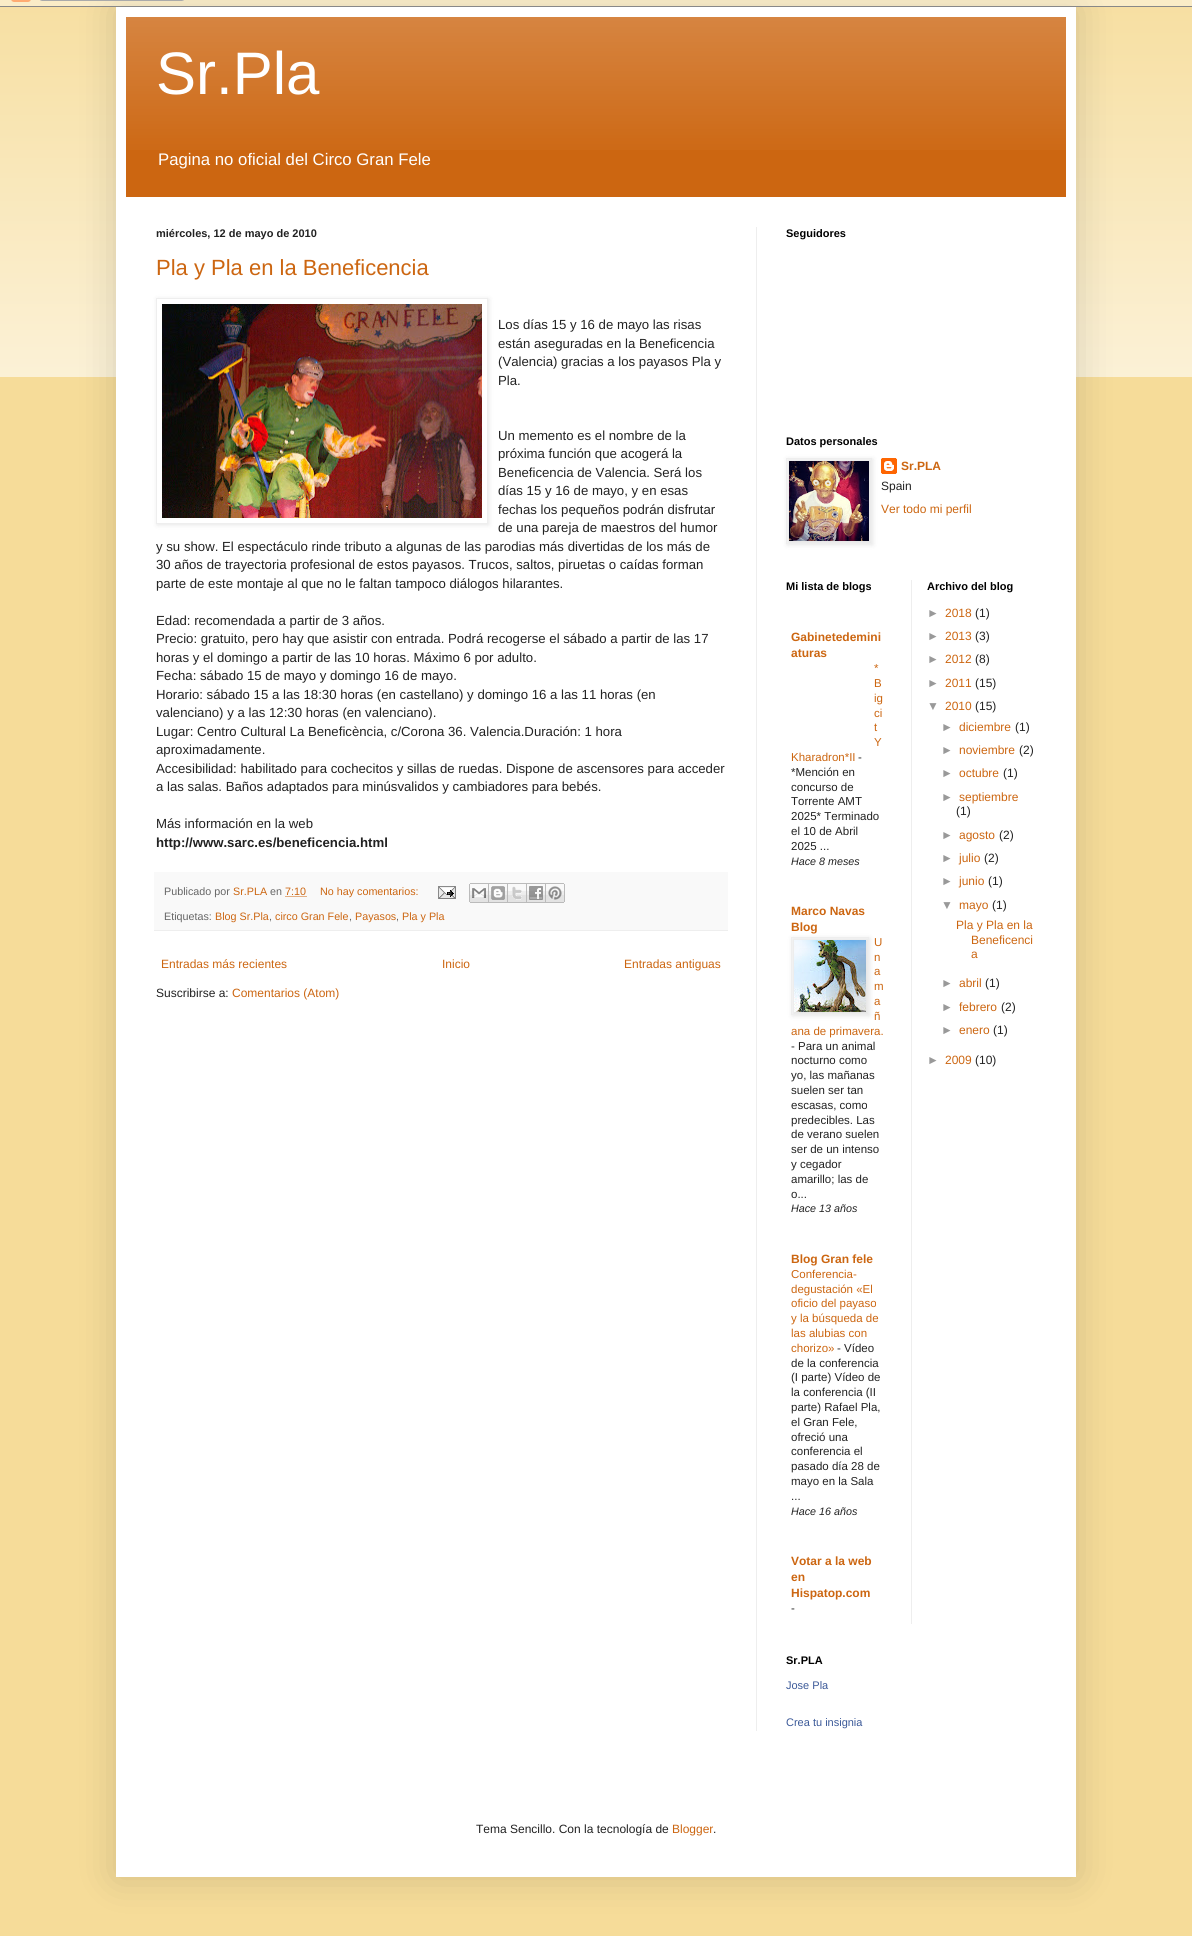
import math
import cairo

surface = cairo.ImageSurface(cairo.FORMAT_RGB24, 1192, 1936)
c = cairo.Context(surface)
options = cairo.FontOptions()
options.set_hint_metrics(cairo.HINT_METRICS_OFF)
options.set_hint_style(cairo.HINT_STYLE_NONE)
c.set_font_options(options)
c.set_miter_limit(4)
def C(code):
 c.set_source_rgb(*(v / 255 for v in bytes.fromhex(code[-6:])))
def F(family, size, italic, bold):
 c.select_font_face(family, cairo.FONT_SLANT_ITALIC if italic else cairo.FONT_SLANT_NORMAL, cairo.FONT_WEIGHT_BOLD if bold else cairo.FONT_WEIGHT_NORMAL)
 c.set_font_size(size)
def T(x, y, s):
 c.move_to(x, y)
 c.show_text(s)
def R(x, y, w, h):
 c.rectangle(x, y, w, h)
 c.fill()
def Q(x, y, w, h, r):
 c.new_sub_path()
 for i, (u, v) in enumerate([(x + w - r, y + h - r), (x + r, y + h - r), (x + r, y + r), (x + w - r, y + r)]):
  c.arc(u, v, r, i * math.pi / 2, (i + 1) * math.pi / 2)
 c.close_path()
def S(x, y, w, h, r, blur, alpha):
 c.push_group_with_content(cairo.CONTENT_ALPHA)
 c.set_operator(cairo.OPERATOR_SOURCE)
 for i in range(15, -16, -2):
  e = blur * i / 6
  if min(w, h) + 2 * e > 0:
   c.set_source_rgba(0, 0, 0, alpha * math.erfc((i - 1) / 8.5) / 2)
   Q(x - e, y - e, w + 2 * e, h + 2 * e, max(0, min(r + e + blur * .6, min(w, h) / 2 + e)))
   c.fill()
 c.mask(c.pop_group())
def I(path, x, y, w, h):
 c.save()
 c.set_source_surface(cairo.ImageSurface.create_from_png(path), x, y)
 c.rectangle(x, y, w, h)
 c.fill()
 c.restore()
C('f6dc99')
c.paint()
I('1.png',0,0,1192,377)
C('000000')
S(116,7,960,1870,0,20,.15)
I('2.png',0,0,1192,7)
C('ffffff')
R(116,7,960,1870)
C('cc6611')
R(126,17,940,180)
I('3.png',126,17,940,133)
F('Liberation Sans',60,0,0)
C('ffffff')
T(156,94,'Sr.Pla')
F('Liberation Sans',16.75,0,0)
T(158,165,'Pagina no oficial del Circo Gran Fele')
C('eeeeee')
R(756,227,1,1504)
F('Liberation Sans',11,0,1)
C('222222')
T(156,237,'miércoles, 12 de mayo de 2010')
F('Liberation Sans',22,0,0)
C('cc6611')
T(156,275,'Pla y Pla en la Beneficencia')
c.save()
c.set_fill_rule(cairo.FILL_RULE_EVEN_ODD)
c.new_path()
c.move_to(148,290)
c.line_to(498,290)
c.line_to(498,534)
c.line_to(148,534)
c.close_path()
c.move_to(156,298)
c.line_to(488,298)
c.line_to(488,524)
c.line_to(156,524)
c.close_path()
c.clip()
C('000000')
S(157,299,332,226,0,2.5,.1)
c.restore()
c.rectangle(156.5,298.5,331,225)
C('eeeeee')
c.set_line_width(1)
c.stroke()
I('4.png',162,304,320,214)
F('Liberation Sans',13.2,0,0)
C('222222')
T(498,329,'Los días 15 y 16 de mayo las risas')
T(498,348,'están aseguradas en la Beneficencia')
T(498,366,'(Valencia) gracias a los payasos Pla y')
T(498,385,'Pla.')
T(498,440,'Un memento es el nombre de la')
T(498,458,'próxima función que acogerá la')
T(498,477,'Beneficencia de Valencia. Será los')
T(498,495,'días 15 y 16 de mayo, y en esas')
T(498,514,'fechas los pequeños podrán disfrutar')
T(498,532,'de una pareja de maestros del humor')
T(156,551,'y su show. El espectáculo rinde tributo a algunas de las parodias más divertidas de los más de')
T(156,569,'30 años de trayectoria profesional de estos payasos. Trucos, saltos, piruetas o caídas forman')
T(156,588,'parte de este montaje al que no le faltan tampoco diálogos hilarantes.')
T(156,625,'Edad: recomendada a partir de 3 años.')
T(156,643,'Precio: gratuito, pero hay que asistir con entrada. Podrá recogerse el sábado a partir de las 17')
T(156,662,'horas y el domingo a partir de las 10 horas. Máximo 6 por adulto.')
T(156,680,'Fecha: sábado 15 de mayo y domingo 16 de mayo.')
T(156,699,'Horario: sábado 15 a las 18:30 horas (en castellano) y domingo 16 a las 11 horas (en')
T(156,717,'valenciano) y a las 12:30 horas (en valenciano).')
T(156,736,'Lugar: Centro Cultural La Beneficència, c/Corona 36. Valencia.Duración: 1 hora')
T(156,754,'aproximadamente.')
T(156,773,'Accesibilidad: habilitado para cochecitos y sillas de ruedas. Dispone de ascensores para acceder')
T(156,791,'a las salas. Baños adaptados para minúsvalidos y cambiadores para bebés.')
T(156,828,'Más información en la web')
F('Liberation Sans',13.2,0,1)
T(156,847,'http://www.sarc.es/beneficencia.html')
C('f9f9f9')
R(154,872,574,58)
C('eeeeee')
R(154,930,574,1)
F('Liberation Sans',10.75,0,0)
C('666666')
T(164,895,'Publicado por')
C('cc6611')
T(233,895,'Sr.PLA')
C('666666')
T(270,895,'en')
C('cc6611')
T(285,895,'7:10')
c.new_path()
c.move_to(285.5,896.5)
c.line_to(306.5,896.5)
c.set_dash([1,1])
c.stroke()
T(320,895,'No hay comentarios:')
I('5.png',438,886,18,13)
I('6.png',469,883,20,20)
I('7.png',489,883,19,20)
I('8.png',508,883,19,20)
I('9.png',527,883,19,20)
I('10.png',546,883,19,20)
C('666666')
T(164,920,'Etiquetas:')
C('cc6611')
T(215,920,'Blog Sr.Pla')
C('666666')
T(269,920,',')
C('cc6611')
T(275,920,'circo Gran Fele')
C('666666')
T(349,920,',')
C('cc6611')
T(355,920,'Payasos')
C('666666')
T(396,920,',')
C('cc6611')
T(402,920,'Pla y Pla')
F('Liberation Sans',12,0,0)
T(161,968,'Entradas más recientes')
T(442,968,'Inicio')
T(624,968,'Entradas antiguas')
C('222222')
T(156,997,'Suscribirse a:')
C('cc6611')
T(232,997,'Comentarios (Atom)')
F('Liberation Sans',11,0,1)
C('000000')
T(786,237,'Seguidores')
T(786,445,'Datos personales')
I('12.png',881,458,16,16)
C('000000')
S(787,459,86,86,0,2.5,.1)
c.rectangle(786.5,458.5,85,85)
C('eeeeee')
c.set_dash([])
c.stroke()
I('11.png',789,461,80,80)
F('Liberation Sans',12,0,1)
C('cc6611')
T(901,470,'Sr.PLA')
F('Liberation Sans',12,0,0)
C('222222')
T(881,490,'Spain')
C('cc6611')
T(881,513,'Ver todo mi perfil')
F('Liberation Sans',11,0,1)
C('000000')
T(786,590,'Mi lista de blogs')
F('Liberation Sans',12,0,1)
C('cc6611')
T(791,641,'Gabinetedemini')
T(791,657,'aturas')
F('Liberation Sans',11.5,0,0)
T(874,672,'*')
T(874,687,'B')
T(874,702,'ig')
T(874,717,'ci')
T(874,731,'t')
T(874,746,'Y')
T(791,761,'Kharadron*II')
C('222222')
T(858,761,'-')
T(791,776,'*Mención en')
T(791,791,'concurso de')
T(791,805,'Torrente AMT')
T(791,820,'2025* Terminado')
T(791,835,'el 10 de Abril')
T(791,850,'2025 ...')
F('Liberation Sans',10.75,1,0)
T(791,865,'Hace 8 meses')
F('Liberation Sans',12,0,1)
C('cc6611')
T(791,915,'Marco Navas')
T(791,931,'Blog')
C('000000')
S(792,938,78,78,0,2.5,.1)
c.rectangle(791.5,937.5,77,77)
C('eeeeee')
c.stroke()
I('13.png',794,940,72,72)
F('Liberation Sans',11.5,0,0)
C('cc6611')
T(874,946,'U')
T(874,961,'n')
T(874,975,'a')
T(874,990,'m')
T(874,1005,'a')
T(874,1020,'ñ')
T(791,1035,'ana de primavera.')
C('222222')
T(791,1050,'- Para un animal')
T(791,1064,'nocturno como')
T(791,1079,'yo, las mañanas')
T(791,1094,'suelen ser tan')
T(791,1109,'escasas, como')
T(791,1124,'predecibles. Las')
T(791,1138,'de verano suelen')
T(791,1153,'ser de un intenso')
T(791,1168,'y cegador')
T(791,1183,'amarillo; las de')
T(791,1198,'o...')
F('Liberation Sans',10.75,1,0)
T(791,1212,'Hace 13 años')
F('Liberation Sans',12,0,1)
C('cc6611')
T(791,1263,'Blog Gran fele')
F('Liberation Sans',11.5,0,0)
T(791,1278,'Conferencia-')
T(791,1293,'degustación «El')
T(791,1307,'oficio del payaso')
T(791,1322,'y la búsqueda de')
T(791,1337,'las alubias con')
T(791,1352,'chorizo»')
C('222222')
T(837,1352,'- Vídeo')
T(791,1367,'de la conferencia')
T(791,1381,'(I parte) Vídeo de')
T(791,1396,'la conferencia (II')
T(791,1411,'parte) Rafael Pla,')
T(791,1426,'el Gran Fele,')
T(791,1441,'ofreció una')
T(791,1455,'conferencia el')
T(791,1470,'pasado día 28 de')
T(791,1485,'mayo en la Sala')
T(791,1500,'...')
F('Liberation Sans',10.75,1,0)
T(791,1515,'Hace 16 años')
F('Liberation Sans',12,0,1)
C('cc6611')
T(791,1565,'Votar a la web')
T(791,1581,'en')
T(791,1597,'Hispatop.com')
F('Liberation Sans',11.5,0,0)
C('222222')
T(791,1612,'-')
C('eeeeee')
R(911,580,1,1044)
F('Liberation Sans',11,0,1)
C('000000')
T(927,590,'Archivo del blog')
F('Liberation Sans',12,0,0)
C('999999')
T(927,617,'►')
C('cc6611')
T(945,617,'2018')
C('222222')
T(975,617,'(1)')
C('999999')
T(927,640,'►')
C('cc6611')
T(945,640,'2013')
C('222222')
T(975,640,'(3)')
C('999999')
T(927,663,'►')
C('cc6611')
T(945,663,'2012')
C('222222')
T(975,663,'(8)')
C('999999')
T(927,687,'►')
C('cc6611')
T(945,687,'2011')
C('222222')
T(975,687,'(15)')
C('999999')
T(927,710,'▼')
C('cc6611')
T(945,710,'2010')
C('222222')
T(975,710,'(15)')
C('999999')
T(941,731,'►')
C('cc6611')
T(959,731,'diciembre')
C('222222')
T(1015,731,'(1)')
C('999999')
T(941,754,'►')
C('cc6611')
T(959,754,'noviembre')
C('222222')
T(1019,754,'(2)')
C('999999')
T(941,777,'►')
C('cc6611')
T(959,777,'octubre')
C('222222')
T(1003,777,'(1)')
C('999999')
T(941,801,'►')
C('cc6611')
T(959,801,'septiembre')
C('222222')
T(956,815,'(1)')
C('999999')
T(941,839,'►')
C('cc6611')
T(959,839,'agosto')
C('222222')
T(999,839,'(2)')
C('999999')
T(941,862,'►')
C('cc6611')
T(959,862,'julio')
C('222222')
T(984,862,'(2)')
C('999999')
T(941,885,'►')
C('cc6611')
T(959,885,'junio')
C('222222')
T(988,885,'(1)')
C('999999')
T(941,909,'▼')
C('cc6611')
T(959,909,'mayo')
C('222222')
T(992,909,'(1)')
C('cc6611')
T(956,929,'Pla y Pla en la')
T(971,944,'Beneficenci')
T(971,958,'a')
C('999999')
T(941,987,'►')
C('cc6611')
T(959,987,'abril')
C('222222')
T(985,987,'(1)')
C('999999')
T(941,1011,'►')
C('cc6611')
T(959,1011,'febrero')
C('222222')
T(1001,1011,'(2)')
C('999999')
T(941,1034,'►')
C('cc6611')
T(959,1034,'enero')
C('222222')
T(993,1034,'(1)')
C('999999')
T(927,1064,'►')
C('cc6611')
T(945,1064,'2009')
C('222222')
T(975,1064,'(10)')
F('Liberation Sans',11,0,1)
C('000000')
T(786,1664,'Sr.PLA')
F('Liberation Sans',11,0,0)
C('3b5998')
T(786,1689,'Jose Pla')
T(786,1726,'Crea tu insignia')
F('Liberation Sans',12,0,0)
C('222222')
T(476,1833,'Tema Sencillo. Con la tecnología de')
C('cc6611')
T(672,1833,'Blogger')
C('222222')
T(713,1833,'.')
surface.write_to_png('o.png')
